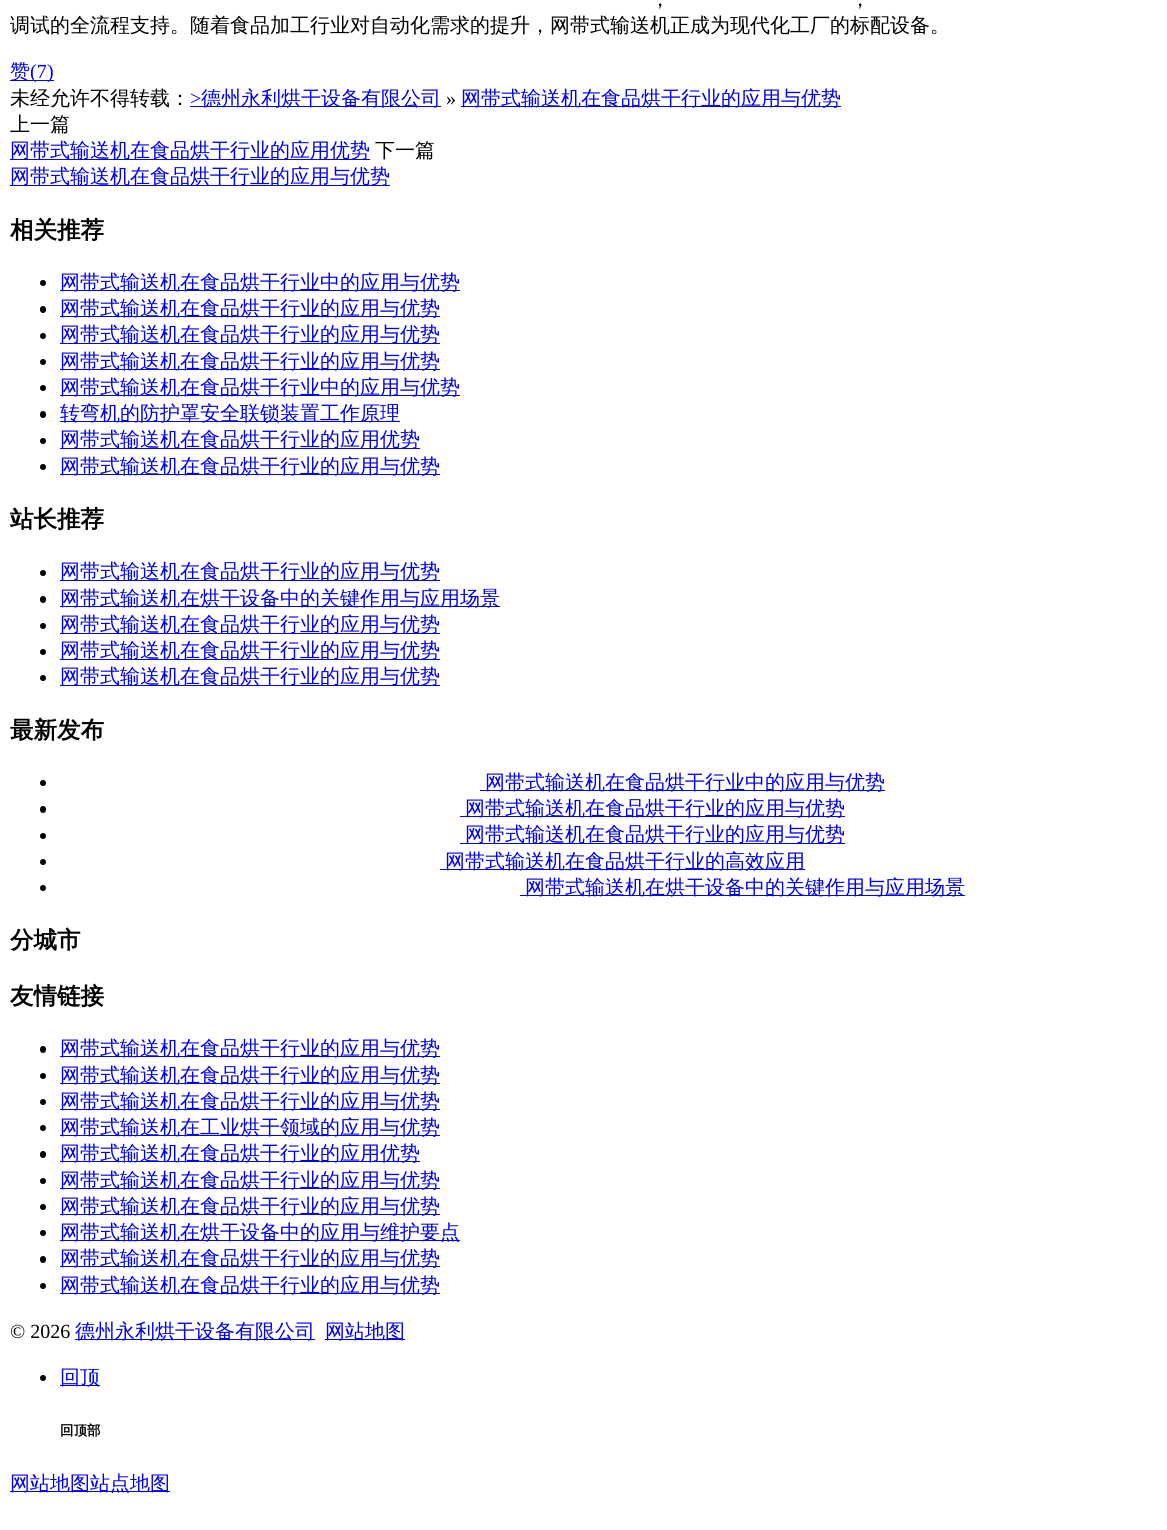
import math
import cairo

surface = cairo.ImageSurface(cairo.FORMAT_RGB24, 1167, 1530)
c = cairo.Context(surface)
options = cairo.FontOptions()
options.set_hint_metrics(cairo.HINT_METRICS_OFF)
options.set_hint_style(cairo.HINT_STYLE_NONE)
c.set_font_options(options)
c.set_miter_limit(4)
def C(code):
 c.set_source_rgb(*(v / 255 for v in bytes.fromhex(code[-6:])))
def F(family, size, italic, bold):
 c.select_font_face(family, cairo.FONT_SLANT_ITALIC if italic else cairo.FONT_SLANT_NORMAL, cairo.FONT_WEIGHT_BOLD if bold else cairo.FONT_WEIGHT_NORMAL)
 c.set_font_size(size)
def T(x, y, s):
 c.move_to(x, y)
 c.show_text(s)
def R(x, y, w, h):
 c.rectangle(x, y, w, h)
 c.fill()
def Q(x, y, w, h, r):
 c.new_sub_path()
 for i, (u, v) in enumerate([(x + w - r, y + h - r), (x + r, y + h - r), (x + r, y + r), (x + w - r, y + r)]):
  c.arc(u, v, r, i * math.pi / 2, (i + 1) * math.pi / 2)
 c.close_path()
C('ffffff')
c.paint()
F('WenQuanYi Zen Hei Medium',20,0,0)
C('000000')
T(650,6,'，')
T(850,6,'，')
T(10,32,'调试的全流程支持。随着食品加工行业对自动化需求的提升，网带式输送机正成为现代化工厂的标配设备。')
C('0000ee')
R(10,80,26,1)
T(10,78,'赞')
F('Liberation Serif',20,0,0)
T(30,78,'(7')
R(36,80,18,1)
T(47,78,')')
F('WenQuanYi Zen Hei Medium',20,0,0)
C('000000')
T(10,105,'未经允许不得转载：')
F('Liberation Serif',20,0,0)
C('0000ee')
T(190,105,'>')
R(190,106,251,1)
F('WenQuanYi Zen Hei Medium',20,0,0)
T(201,105,'德州永利烘干设备有限公司')
F('Liberation Serif',20,0,0)
C('000000')
T(446,105,'»')
C('0000ee')
R(461,106,380,1)
F('WenQuanYi Zen Hei Medium',20,0,0)
T(461,105,'网带式输送机在食品烘干行业的应用与优势')
C('000000')
T(10,131,'上一篇')
C('0000ee')
R(10,159,360,1)
T(10,157,'网带式输送机在食品烘干行业的应用优势')
C('000000')
T(375,157,'下一篇')
C('0000ee')
R(10,185,380,1)
T(10,183,'网带式输送机在食品烘干行业的应用与优势')
F('WenQuanYi Zen Hei',23.5,0,1)
C('000000')
T(10,238,'相关推荐')
c.new_path()
c.arc(43,283,3,0,2 * math.pi)
c.fill()
C('0000ee')
R(60,290,400,1)
F('WenQuanYi Zen Hei Medium',20,0,0)
T(60,289,'网带式输送机在食品烘干行业中的应用与优势')
C('000000')
Q(40,306,6,7,3)
c.fill()
C('0000ee')
R(60,316,380,1)
T(60,315,'网带式输送机在食品烘干行业的应用与优势')
C('000000')
c.new_path()
c.arc(43,336,3,0,2 * math.pi)
c.fill()
C('0000ee')
R(60,343,380,1)
T(60,341,'网带式输送机在食品烘干行业的应用与优势')
C('000000')
c.new_path()
c.arc(43,362,3,0,2 * math.pi)
c.fill()
C('0000ee')
R(60,369,380,1)
T(60,368,'网带式输送机在食品烘干行业的应用与优势')
C('000000')
c.new_path()
c.arc(43,388,3,0,2 * math.pi)
c.fill()
C('0000ee')
R(60,395,400,1)
T(60,394,'网带式输送机在食品烘干行业中的应用与优势')
C('000000')
Q(40,411,6,7,3)
c.fill()
C('0000ee')
R(60,421,340,1)
T(60,420,'转弯机的防护罩安全联锁装置工作原理')
C('000000')
c.new_path()
c.arc(43,441,3,0,2 * math.pi)
c.fill()
C('0000ee')
R(60,448,360,1)
T(60,446,'网带式输送机在食品烘干行业的应用优势')
C('000000')
c.new_path()
c.arc(43,467,3,0,2 * math.pi)
c.fill()
C('0000ee')
R(60,474,380,1)
T(60,473,'网带式输送机在食品烘干行业的应用与优势')
F('WenQuanYi Zen Hei',23.5,0,1)
C('000000')
T(10,527,'站长推荐')
c.new_path()
c.arc(43,573,3,0,2 * math.pi)
c.fill()
C('0000ee')
R(60,580,380,1)
F('WenQuanYi Zen Hei Medium',20,0,0)
T(60,578,'网带式输送机在食品烘干行业的应用与优势')
C('000000')
Q(40,596,6,7,3)
c.fill()
C('0000ee')
R(60,606,440,1)
T(60,605,'网带式输送机在烘干设备中的关键作用与应用场景')
C('000000')
c.new_path()
c.arc(43,626,3,0,2 * math.pi)
c.fill()
C('0000ee')
R(60,633,380,1)
T(60,631,'网带式输送机在食品烘干行业的应用与优势')
C('000000')
c.new_path()
c.arc(43,652,3,0,2 * math.pi)
c.fill()
C('0000ee')
R(60,659,380,1)
T(60,657,'网带式输送机在食品烘干行业的应用与优势')
C('000000')
c.new_path()
c.arc(43,678,3,0,2 * math.pi)
c.fill()
C('0000ee')
R(60,685,380,1)
T(60,683,'网带式输送机在食品烘干行业的应用与优势')
F('WenQuanYi Zen Hei',23.5,0,1)
C('000000')
T(10,738,'最新发布')
c.new_path()
c.arc(43,783,3,0,2 * math.pi)
c.fill()
C('0000ee')
R(480,790,405,1)
F('WenQuanYi Zen Hei Medium',20,0,0)
T(485,789,'网带式输送机在食品烘干行业中的应用与优势')
C('000000')
Q(40,806,6,7,3)
c.fill()
C('0000ee')
R(460,816,385,1)
T(465,815,'网带式输送机在食品烘干行业的应用与优势')
C('000000')
c.new_path()
c.arc(43,836,3,0,2 * math.pi)
c.fill()
C('0000ee')
R(460,843,385,1)
T(465,841,'网带式输送机在食品烘干行业的应用与优势')
C('000000')
c.new_path()
c.arc(43,862,3,0,2 * math.pi)
c.fill()
C('0000ee')
R(440,869,365,1)
T(445,868,'网带式输送机在食品烘干行业的高效应用')
C('000000')
c.new_path()
c.arc(43,888,3,0,2 * math.pi)
c.fill()
C('0000ee')
R(520,895,445,1)
T(525,894,'网带式输送机在烘干设备中的关键作用与应用场景')
F('WenQuanYi Zen Hei',23.5,0,1)
C('000000')
T(10,948,'分城市')
T(10,1004,'友情链接')
Q(40,1046,6,7,3)
c.fill()
C('0000ee')
R(60,1056,380,1)
F('WenQuanYi Zen Hei Medium',20,0,0)
T(60,1055,'网带式输送机在食品烘干行业的应用与优势')
C('000000')
c.new_path()
c.arc(43,1076,3,0,2 * math.pi)
c.fill()
C('0000ee')
R(60,1083,380,1)
T(60,1082,'网带式输送机在食品烘干行业的应用与优势')
C('000000')
c.new_path()
c.arc(43,1102,3,0,2 * math.pi)
c.fill()
C('0000ee')
R(60,1109,380,1)
T(60,1108,'网带式输送机在食品烘干行业的应用与优势')
C('000000')
c.new_path()
c.arc(43,1128,3,0,2 * math.pi)
c.fill()
C('0000ee')
R(60,1135,380,1)
T(60,1134,'网带式输送机在工业烘干领域的应用与优势')
C('000000')
Q(40,1151,6,7,3)
c.fill()
C('0000ee')
R(60,1161,360,1)
T(60,1160,'网带式输送机在食品烘干行业的应用优势')
C('000000')
c.new_path()
c.arc(43,1181,3,0,2 * math.pi)
c.fill()
C('0000ee')
R(60,1188,380,1)
T(60,1187,'网带式输送机在食品烘干行业的应用与优势')
C('000000')
c.new_path()
c.arc(43,1207,3,0,2 * math.pi)
c.fill()
C('0000ee')
R(60,1214,380,1)
T(60,1213,'网带式输送机在食品烘干行业的应用与优势')
C('000000')
c.new_path()
c.arc(43,1233,3,0,2 * math.pi)
c.fill()
C('0000ee')
R(60,1240,400,1)
T(60,1239,'网带式输送机在烘干设备中的应用与维护要点')
C('000000')
Q(40,1256,6,7,3)
c.fill()
C('0000ee')
R(60,1266,380,1)
T(60,1265,'网带式输送机在食品烘干行业的应用与优势')
C('000000')
c.new_path()
c.arc(43,1286,3,0,2 * math.pi)
c.fill()
C('0000ee')
R(60,1293,380,1)
T(60,1292,'网带式输送机在食品烘干行业的应用与优势')
F('Liberation Serif',20,0,0)
C('000000')
T(10,1338,'© 2026')
C('0000ee')
R(75,1339,240,1)
F('WenQuanYi Zen Hei Medium',20,0,0)
T(75,1338,'德州永利烘干设备有限公司')
R(325,1339,80,1)
T(325,1338,'网站地图')
C('000000')
c.new_path()
c.arc(43,1378,3,0,2 * math.pi)
c.fill()
C('0000ee')
R(60,1385,40,1)
T(60,1384,'回顶')
F('WenQuanYi Zen Hei',13.5,0,1)
C('000000')
T(60,1435,'回顶部')
C('0000ee')
R(10,1491,160,1)
F('WenQuanYi Zen Hei Medium',20,0,0)
T(10,1490,'网站地图站点地图')
surface.write_to_png('o.png')
